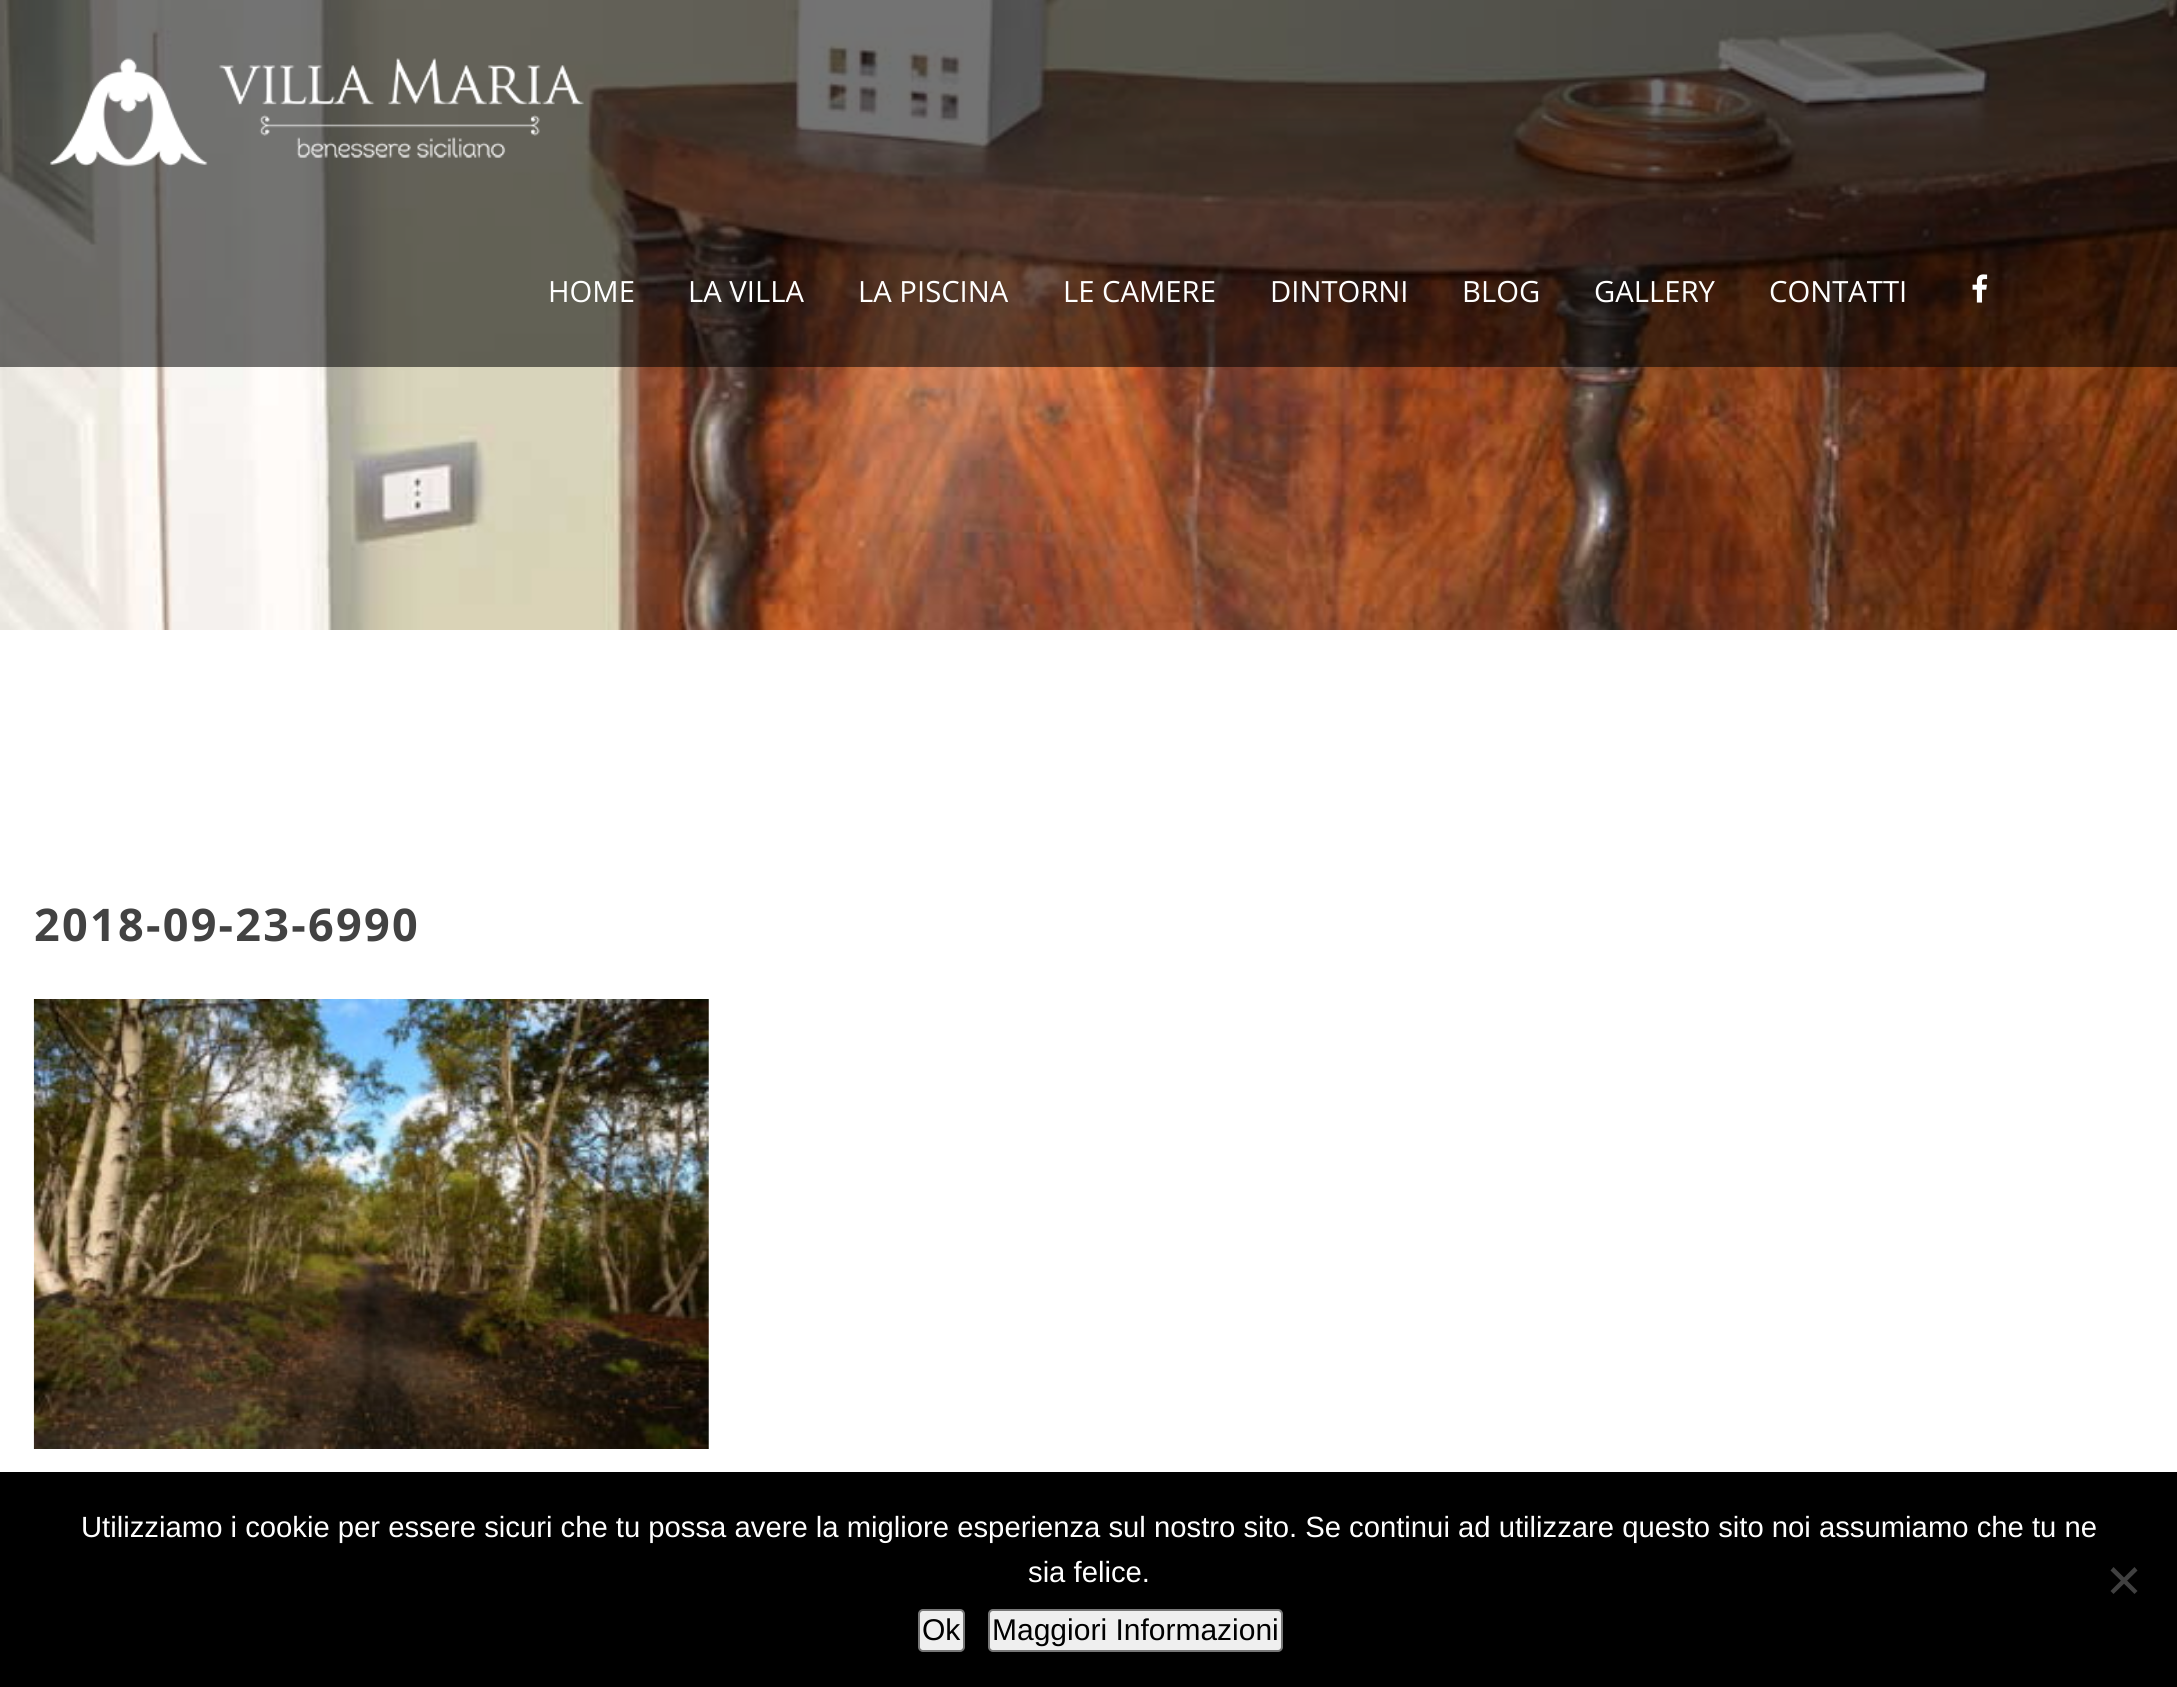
import math
import cairo

surface = cairo.ImageSurface(cairo.FORMAT_RGB24, 2177, 1687)
c = cairo.Context(surface)
options = cairo.FontOptions()
options.set_hint_metrics(cairo.HINT_METRICS_OFF)
options.set_hint_style(cairo.HINT_STYLE_NONE)
c.set_font_options(options)
c.set_miter_limit(4)
def C(code):
 c.set_source_rgb(*(v / 255 for v in bytes.fromhex(code[-6:])))
def F(family, size, italic, bold):
 c.select_font_face(family, cairo.FONT_SLANT_ITALIC if italic else cairo.FONT_SLANT_NORMAL, cairo.FONT_WEIGHT_BOLD if bold else cairo.FONT_WEIGHT_NORMAL)
 c.set_font_size(size)
def T(x, y, s):
 c.move_to(x, y)
 c.show_text(s)
def L(x, y, s, letter, word):
 c.move_to(x, y)
 for ch in s:
  c.show_text(ch)
  c.rel_move_to(letter + word * (ch == ' '), 0)
def R(x, y, w, h):
 c.rectangle(x, y, w, h)
 c.fill()
def Q(x, y, w, h, r):
 c.new_sub_path()
 for i, (u, v) in enumerate([(x + w - r, y + h - r), (x + r, y + h - r), (x + r, y + r), (x + w - r, y + r)]):
  c.arc(u, v, r, i * math.pi / 2, (i + 1) * math.pi / 2)
 c.close_path()
def I(path, x, y, w, h):
 c.save()
 c.set_source_surface(cairo.ImageSurface.create_from_png(path), x, y)
 c.rectangle(x, y, w, h)
 c.fill()
 c.restore()
C('ffffff')
c.paint()
I('1.png',0,0,2177,630)
c.set_source_rgba(0,0,0,0.55)
R(0,0,2177,367)
I('2.png',50,58,534,109)
F('Open Sans',29.25,0,0)
C('ffffff')
T(548,302,'HOME')
T(688,302,'LA VILLA')
T(858,302,'LA PISCINA')
T(1063,302,'LE CAMERE')
T(1270,302,'DINTORNI')
T(1462,302,'BLOG')
T(1594,302,'GALLERY')
T(1769,302,'CONTATTI')
I('3.png',1972,274,16,29)
F('Open Sans',45,0,1)
C('424242')
L(34,941,'2018-09-23-6990',2.25,0)
I('4.png',33,999,676,450)
C('000000')
R(0,1472,2177,215)
F('Liberation Sans',29.25,0,0)
C('ffffff')
T(81,1537,'Utilizziamo i cookie per essere sicuri che tu possa avere la migliore esperienza sul nostro sito. Se continui ad utilizzare questo sito noi assumiamo che tu ne')
T(1028,1582,'sia felice.')
C('404040')
c.new_path()
c.move_to(2134.5,1567)
c.line_to(2137.5,1570.5)
c.line_to(2113.5,1594)
c.line_to(2110.5,1591)
c.close_path()
c.fill()
c.new_path()
c.move_to(2110.5,1570.5)
c.line_to(2113.5,1567)
c.line_to(2137.5,1591)
c.line_to(2134.5,1594)
c.close_path()
c.fill()
C('efefef')
Q(919,1610,45,41,4)
c.fill_preserve()
C('767676')
c.stroke()
F('Liberation Sans',30,0,0)
C('000000')
T(922,1640,'Ok')
C('efefef')
Q(989,1610,293,41,4)
c.fill_preserve()
C('767676')
c.stroke()
C('000000')
T(992,1640,'Maggiori Informazioni')
surface.write_to_png('o.png')
